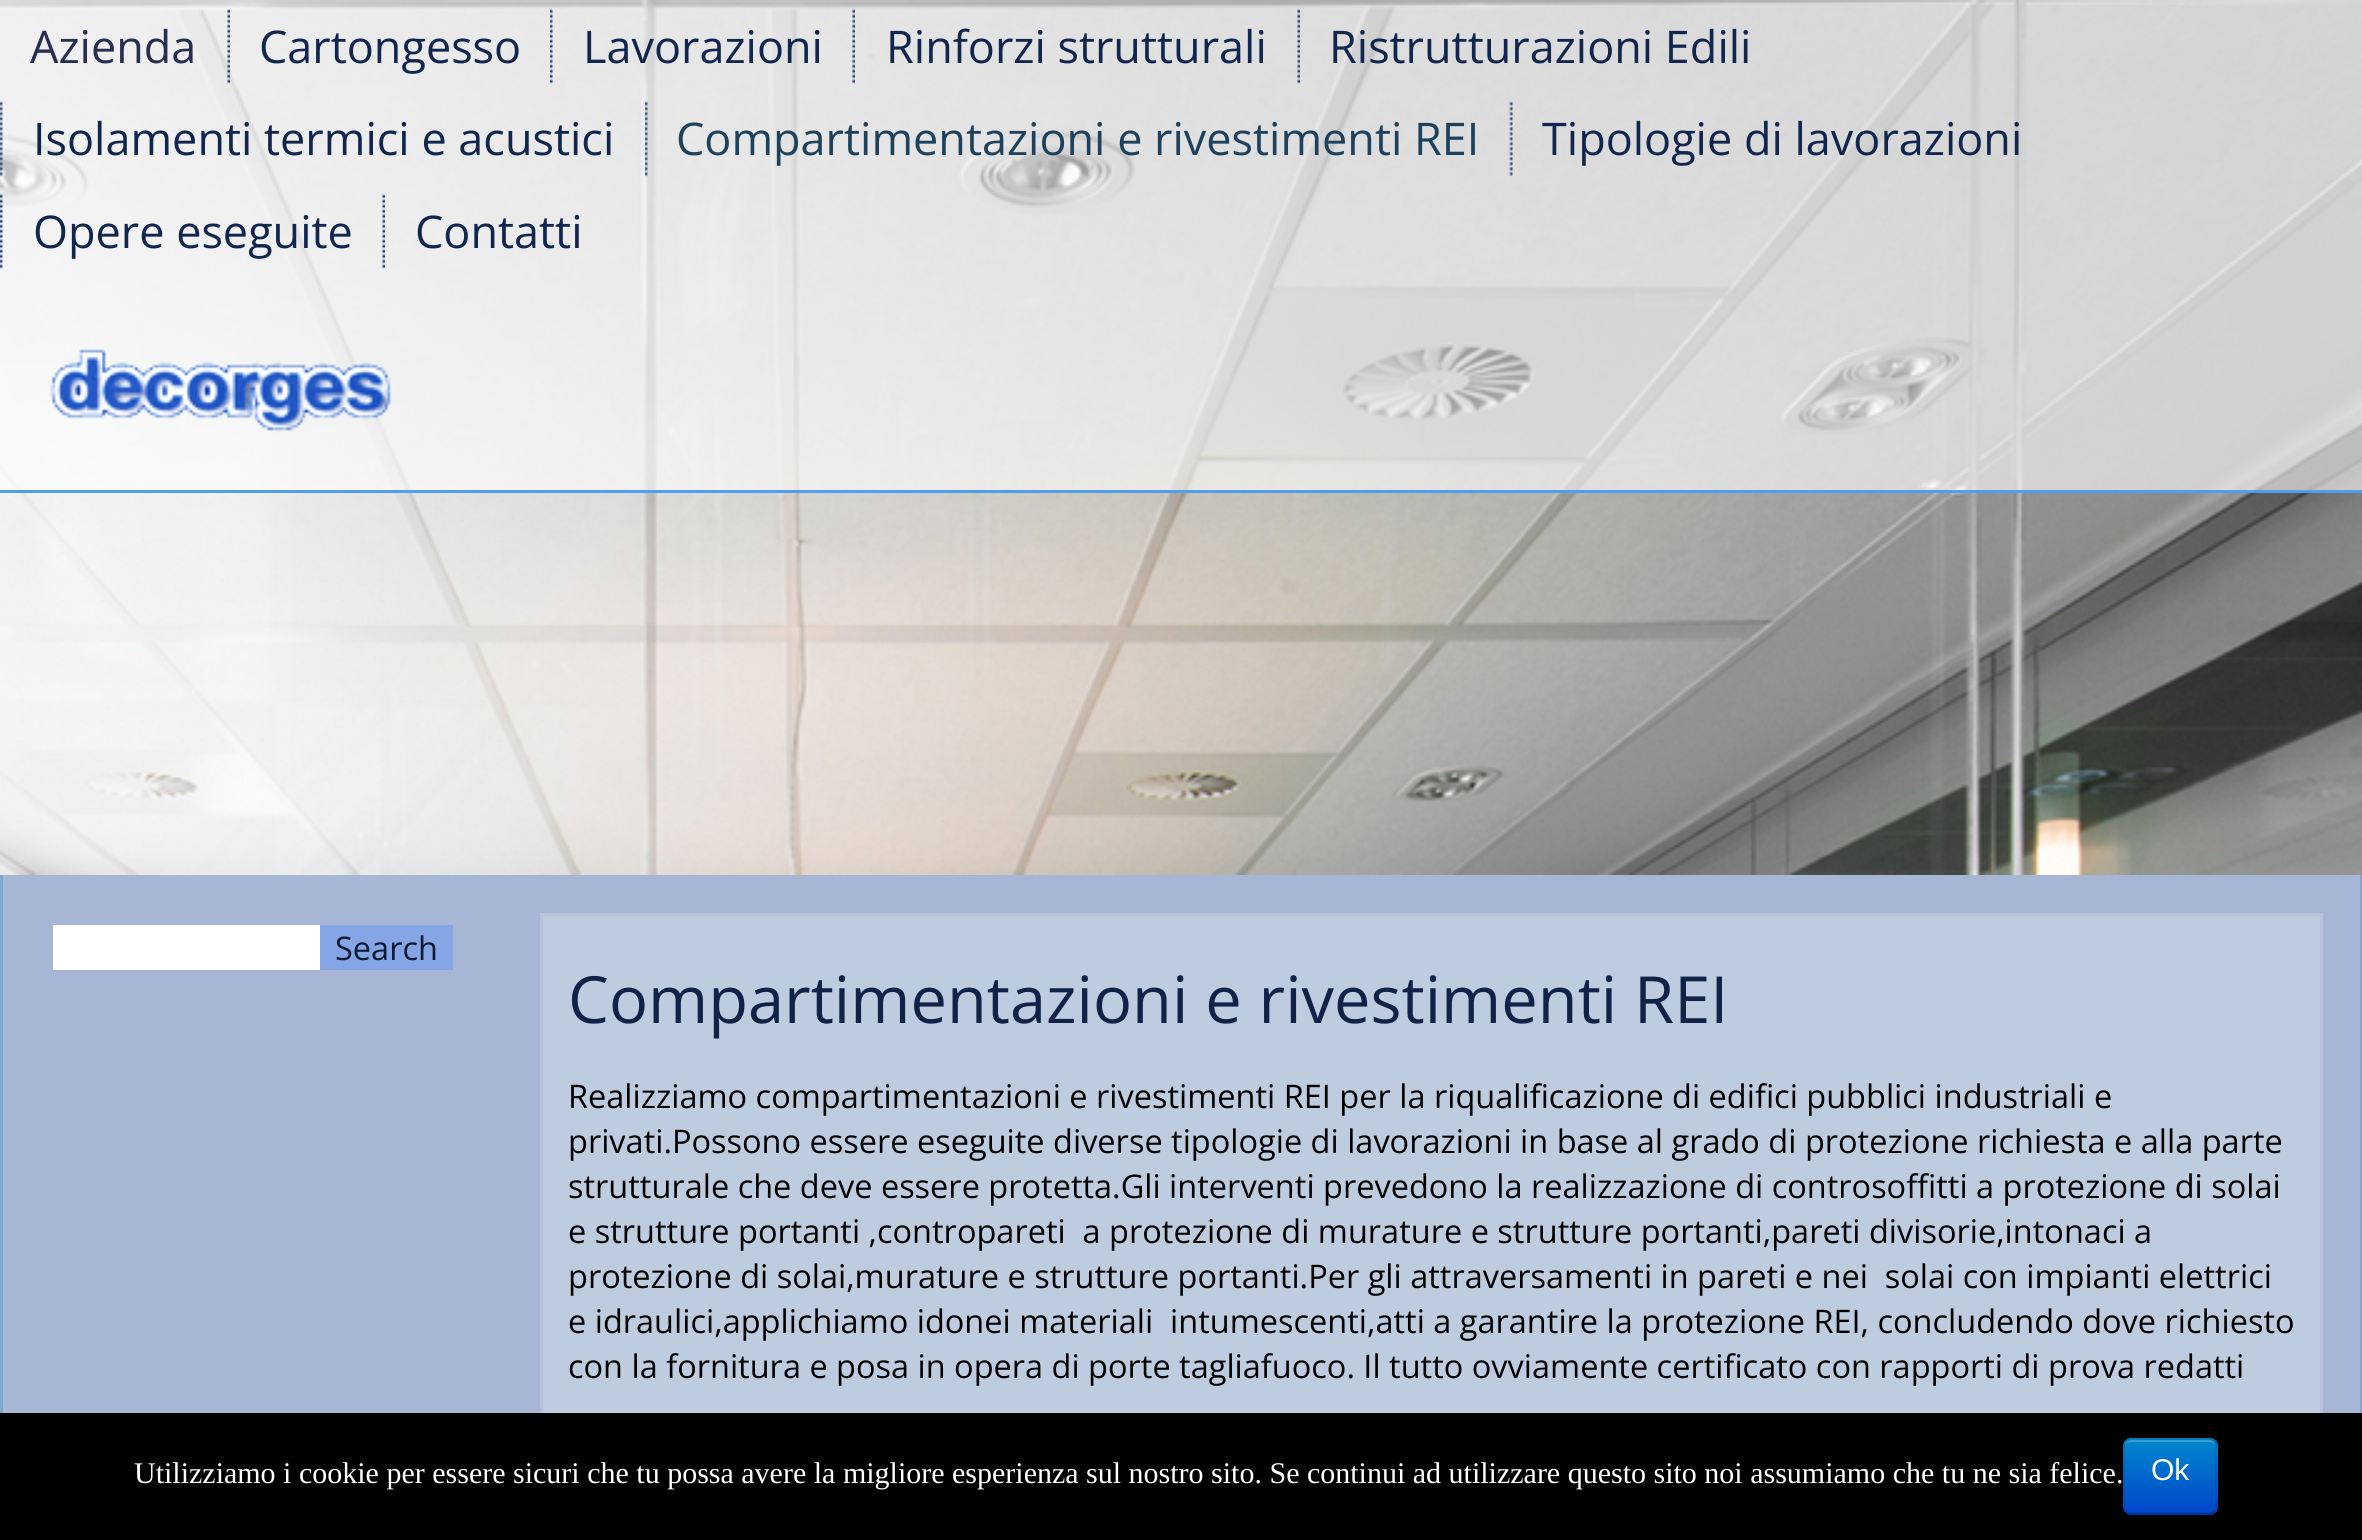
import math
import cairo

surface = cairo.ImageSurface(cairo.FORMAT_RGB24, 2362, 1540)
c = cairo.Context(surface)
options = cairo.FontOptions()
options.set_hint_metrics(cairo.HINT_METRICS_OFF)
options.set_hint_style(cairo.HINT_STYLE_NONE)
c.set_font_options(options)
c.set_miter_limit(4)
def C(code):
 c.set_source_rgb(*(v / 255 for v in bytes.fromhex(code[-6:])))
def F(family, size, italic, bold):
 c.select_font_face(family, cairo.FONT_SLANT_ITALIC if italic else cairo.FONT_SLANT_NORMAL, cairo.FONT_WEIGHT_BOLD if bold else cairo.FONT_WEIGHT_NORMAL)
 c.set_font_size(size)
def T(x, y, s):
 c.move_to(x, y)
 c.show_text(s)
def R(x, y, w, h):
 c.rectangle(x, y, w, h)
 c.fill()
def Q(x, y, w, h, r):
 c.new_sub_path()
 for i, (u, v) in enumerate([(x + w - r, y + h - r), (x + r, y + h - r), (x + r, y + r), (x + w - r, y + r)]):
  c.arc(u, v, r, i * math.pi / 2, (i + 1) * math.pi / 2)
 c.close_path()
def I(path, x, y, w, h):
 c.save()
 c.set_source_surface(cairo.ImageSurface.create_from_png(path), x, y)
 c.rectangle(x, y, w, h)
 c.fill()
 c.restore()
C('ffffff')
c.paint()
I('1.png',0,0,2362,875)
c.set_source_rgba(1,1,1,0.6)
R(0,0,2362,490)
C('529eeb')
R(0,490,2362,3)
F('Open Sans',45,0,0)
C('282d52')
T(30,63,'Azienda')
I('2.png',227,9,3,75)
C('11264f')
T(259,63,'Cartongesso')
I('3.png',550,9,3,75)
T(583,63,'Lavorazioni')
I('4.png',852,9,3,75)
T(886,63,'Rinforzi strutturali')
I('5.png',1297,9,3,75)
T(1329,63,'Ristrutturazioni Edili')
I('6.png',0,101,3,76)
T(33,155,'Isolamenti termici e acustici')
I('7.png',645,101,3,76)
C('1e425c')
T(676,155,'Compartimentazioni e rivestimenti REI')
I('8.png',1509,101,4,75)
C('11264f')
T(1542,155,'Tipologie di lavorazioni')
I('9.png',0,194,3,75)
T(33,248,'Opere eseguite')
I('10.png',382,194,3,75)
T(415,248,'Contatti')
I('11.png',49,349,342,84)
C('a6b6d4')
R(3,875,2357,538)
C('7da8cf')
R(2360,875,2,538)
R(0,875,3,538)
C('ffffff')
R(53,925,267,45)
C('86a5e4')
R(320,925,133,45)
F('Open Sans',32.5,0,0)
C('0c1a36')
T(335,960,'Search')
C('becce0')
R(543,916,1777,497)
c.rectangle(541.5,914.5,1780,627)
C('b8c2dd')
c.set_line_width(3)
c.stroke()
F('Open Sans',65,0,0)
C('102247')
T(568,1023,'Compartimentazioni e rivestimenti REI')
F('Open Sans',32.5,0,0)
C('000000')
T(568,1108,'Realizziamo compartimentazioni e rivestimenti REI per la riqualificazione di edifici pubblici industriali e')
T(568,1153,'privati.Possono essere eseguite diverse tipologie di lavorazioni in base al grado di protezione richiesta e alla parte')
T(568,1198,'strutturale che deve essere protetta.Gli interventi prevedono la realizzazione di controsoffitti a protezione di solai')
T(568,1243,'e strutture portanti ,contropareti  a protezione di murature e strutture portanti,pareti divisorie,intonaci a')
T(568,1288,'protezione di solai,murature e strutture portanti.Per gli attraversamenti in pareti e nei  solai con impianti elettrici')
T(568,1333,'e idraulici,applichiamo idonei materiali  intumescenti,atti a garantire la protezione REI, concludendo dove richiesto')
T(568,1378,'con la fornitura e posa in opera di porte tagliafuoco. Il tutto ovviamente certificato con rapporti di prova redatti')
R(0,1413,2362,127)
F('Liberation Serif',30,0,0)
C('ffffff')
T(134,1483,'Utilizziamo i cookie per essere sicuri che tu possa avere la migliore esperienza sul nostro sito. Se continui ad utilizzare questo sito noi assumiamo che tu ne sia felice.')
gradient = cairo.LinearGradient(2170,1438,2170,1515)
gradient.add_color_stop_rgba(0,0,0.533,0.8,1)
gradient.add_color_stop_rgba(1,0,0.267,0.8,1)
c.set_source(gradient)
Q(2123,1438,95,77,8)
c.fill()
c.set_source_rgba(1,1,1,0.2)
c.new_path()
c.move_to(2130,1442)
c.line_to(2210,1442)
c.curve_to(2213,1442,2215,1445,2215,1448)
c.curve_to(2215,1437,2207,1440,2197,1440)
c.line_to(2143,1440)
c.curve_to(2133,1440,2125,1437,2125,1448)
c.curve_to(2125,1445,2127,1442,2130,1442)
c.close_path()
c.fill()
c.new_path()
c.move_to(2214.5,1512)
c.curve_to(2213,1513,2211.5,1514,2210,1514)
c.line_to(2130,1514)
c.curve_to(2128.5,1514,2127,1513,2125.5,1512)
c.set_source_rgba(0,0,0,0.25)
c.set_line_width(2.5)
c.stroke()
c.new_path()
c.move_to(2125.5,1512)
c.curve_to(2122,1508.5,2124,1500.5,2124,1497)
c.line_to(2124,1455.5)
c.curve_to(2124,1436.5,2123.5,1439,2143.5,1439)
c.line_to(2196.5,1439)
c.curve_to(2216.5,1439,2216,1436.5,2216,1455.5)
c.line_to(2216,1497)
c.curve_to(2216,1500.5,2218,1508.5,2214.5,1512)
c.set_source_rgba(0,0,0,0.1)
c.stroke()
F('Liberation Sans',30,0,0)
C('ffffff')
T(2151,1480,'Ok')
surface.write_to_png('o.png')
